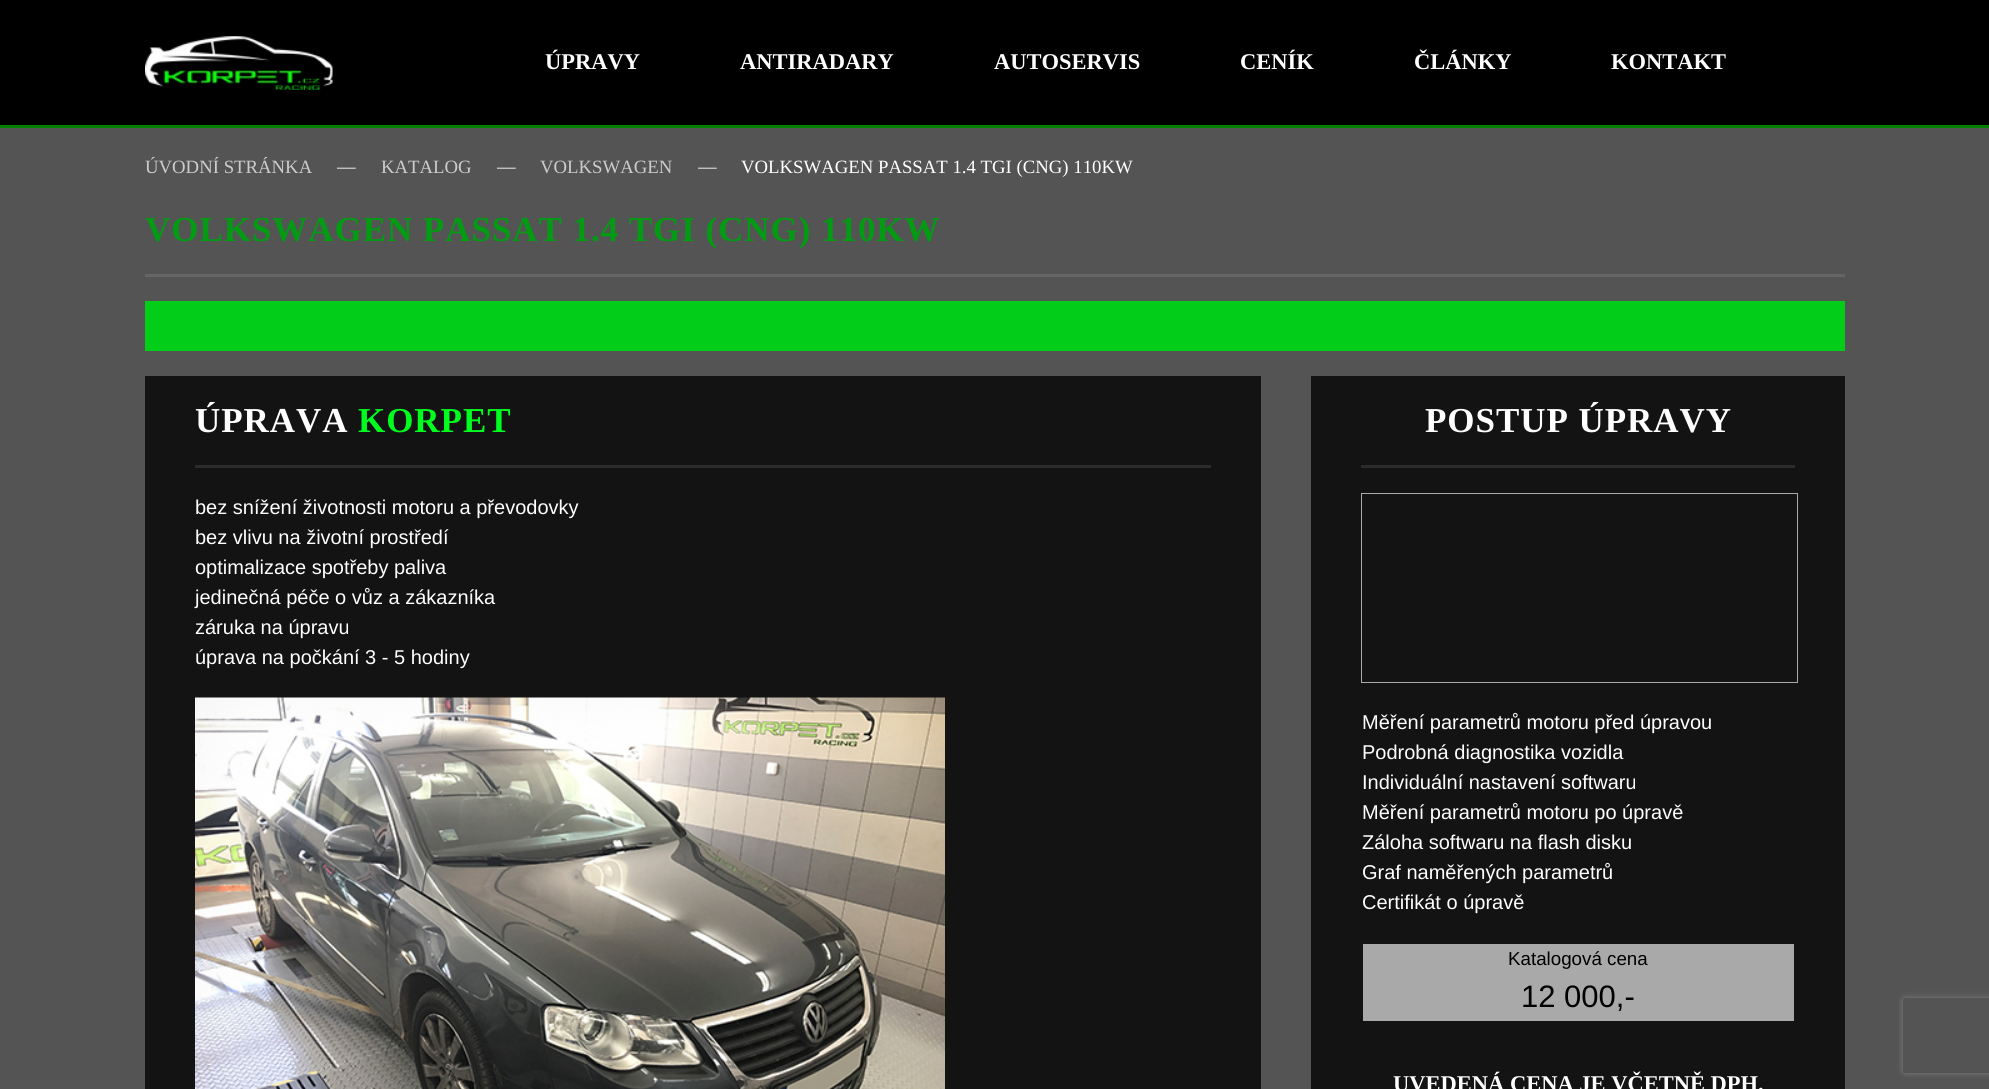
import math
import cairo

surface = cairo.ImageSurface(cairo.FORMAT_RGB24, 1989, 1089)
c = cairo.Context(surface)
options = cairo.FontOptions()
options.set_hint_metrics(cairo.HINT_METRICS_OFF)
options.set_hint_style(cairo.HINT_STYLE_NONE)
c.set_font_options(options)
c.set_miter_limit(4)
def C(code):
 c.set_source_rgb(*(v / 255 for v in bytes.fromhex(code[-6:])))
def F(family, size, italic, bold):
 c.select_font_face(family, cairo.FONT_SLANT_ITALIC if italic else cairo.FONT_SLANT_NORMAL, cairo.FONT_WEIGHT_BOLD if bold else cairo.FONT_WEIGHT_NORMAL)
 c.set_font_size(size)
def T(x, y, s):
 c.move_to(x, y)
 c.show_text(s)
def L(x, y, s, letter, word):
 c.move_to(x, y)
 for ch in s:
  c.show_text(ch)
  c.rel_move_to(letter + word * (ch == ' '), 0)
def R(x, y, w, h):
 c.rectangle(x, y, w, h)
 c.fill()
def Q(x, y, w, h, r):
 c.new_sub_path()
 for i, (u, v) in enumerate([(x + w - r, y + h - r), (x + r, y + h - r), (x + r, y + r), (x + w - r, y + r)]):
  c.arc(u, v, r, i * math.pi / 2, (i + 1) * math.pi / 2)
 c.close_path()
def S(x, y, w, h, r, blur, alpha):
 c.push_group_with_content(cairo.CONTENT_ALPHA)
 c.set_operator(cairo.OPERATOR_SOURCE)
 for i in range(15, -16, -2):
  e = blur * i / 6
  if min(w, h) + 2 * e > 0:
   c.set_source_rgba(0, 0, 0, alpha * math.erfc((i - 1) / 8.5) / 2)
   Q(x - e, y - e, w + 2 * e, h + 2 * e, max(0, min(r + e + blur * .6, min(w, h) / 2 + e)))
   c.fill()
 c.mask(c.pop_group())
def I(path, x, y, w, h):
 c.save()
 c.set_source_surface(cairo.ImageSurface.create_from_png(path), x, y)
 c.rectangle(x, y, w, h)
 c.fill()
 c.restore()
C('535453')
c.paint()
C('000000')
R(0,0,1989,125)
C('008000')
R(0,125,1989,3)
I('1.png',145,36,188,54)
F('Liberation Serif',22.5,0,1)
C('ffffff')
T(545,69,'ÚPRAVY')
T(740,69,'ANTIRADARY')
T(994,69,'AUTOSERVIS')
T(1240,69,'CENÍK')
T(1414,69,'ČLÁNKY')
T(1611,69,'KONTAKT')
F('Liberation Serif',18.75,0,0)
C('cbcccb')
T(145,173,'ÚVODNÍ STRÁNKA')
F('Liberation Sans',18.75,0,0)
T(337,173,'—')
F('Liberation Serif',18.75,0,0)
T(381,173,'KATALOG')
F('Liberation Sans',18.75,0,0)
T(497,173,'—')
F('Liberation Serif',18.75,0,0)
T(540,173,'VOLKSWAGEN')
F('Liberation Sans',18.75,0,0)
T(698,173,'—')
F('Liberation Serif',18.75,0,0)
C('ffffff')
T(741,173,'VOLKSWAGEN PASSAT 1.4 TGI (CNG) 110KW')
F('Liberation Serif',35,0,1)
C('029b13')
L(145,241,'VOLKSWAGEN PASSAT 1.4 TGI (CNG) 110KW',.95,0)
C('646564')
R(145,274,1700,3)
C('02ce19')
R(145,301,1700,50)
C('131313')
R(145,376,1116,713)
C('ffffff')
L(195,432,'ÚPRAVA',.95,0)
C('00fe1e')
L(358,432,'KORPET',.95,0)
C('2b2b2b')
R(195,465,1016,3)
F('Liberation Sans',20,0,0)
C('ffffff')
T(195,514,'bez snížení životnosti motoru a převodovky')
T(195,544,'bez vlivu na životní prostředí')
T(195,574,'optimalizace spotřeby paliva')
T(195,604,'jedinečná péče o vůz a zákazníka')
T(195,634,'záruka na úpravu')
T(195,664,'úprava na počkání 3 - 5 hodiny')
I('2.png',195,697,750,392)
C('131313')
R(1311,376,534,713)
F('Liberation Serif',35,0,1)
C('ffffff')
L(1425,432,'POSTUP ÚPRAVY',.95,0)
C('2b2b2b')
R(1361,465,434,3)
c.rectangle(1361.5,493.5,436,189)
C('a9a9a9')
c.set_line_width(1)
c.stroke()
F('Liberation Sans',20,0,0)
C('ffffff')
T(1362,729,'Měření parametrů motoru před úpravou')
T(1362,759,'Podrobná diagnostika vozidla')
T(1362,789,'Individuální nastavení softwaru')
T(1362,819,'Měření parametrů motoru po úpravě')
T(1362,849,'Záloha softwaru na flash disku')
T(1362,879,'Graf naměřených parametrů')
T(1362,909,'Certifikát o úpravě')
C('a9a9a9')
R(1363,944,431,77)
F('Liberation Sans',18.75,0,0)
C('000000')
T(1508,965,'Katalogová cena')
F('Liberation Sans',31,0,0)
T(1521,1007,'12 000,-')
F('Liberation Serif',22.5,0,1)
C('ffffff')
T(1393,1091,'UVEDENÁ CENA JE VČETNĚ DPH.')
c.save()
c.set_fill_rule(cairo.FILL_RULE_EVEN_ODD)
c.new_path()
c.move_to(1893,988)
c.line_to(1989,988)
c.line_to(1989,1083)
c.line_to(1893,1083)
c.close_path()
c.move_to(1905.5,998)
c.line_to(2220.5,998)
c.curve_to(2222,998,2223,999,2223,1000.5)
c.line_to(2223,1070.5)
c.curve_to(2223,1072,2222,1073,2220.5,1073)
c.line_to(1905.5,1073)
c.curve_to(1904,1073,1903,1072,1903,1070.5)
c.line_to(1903,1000.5)
c.curve_to(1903,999,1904,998,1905.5,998)
c.close_path()
c.clip()
C('808080')
S(1903,998,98,75,2.5,3,1)
c.restore()
surface.write_to_png('o.png')
